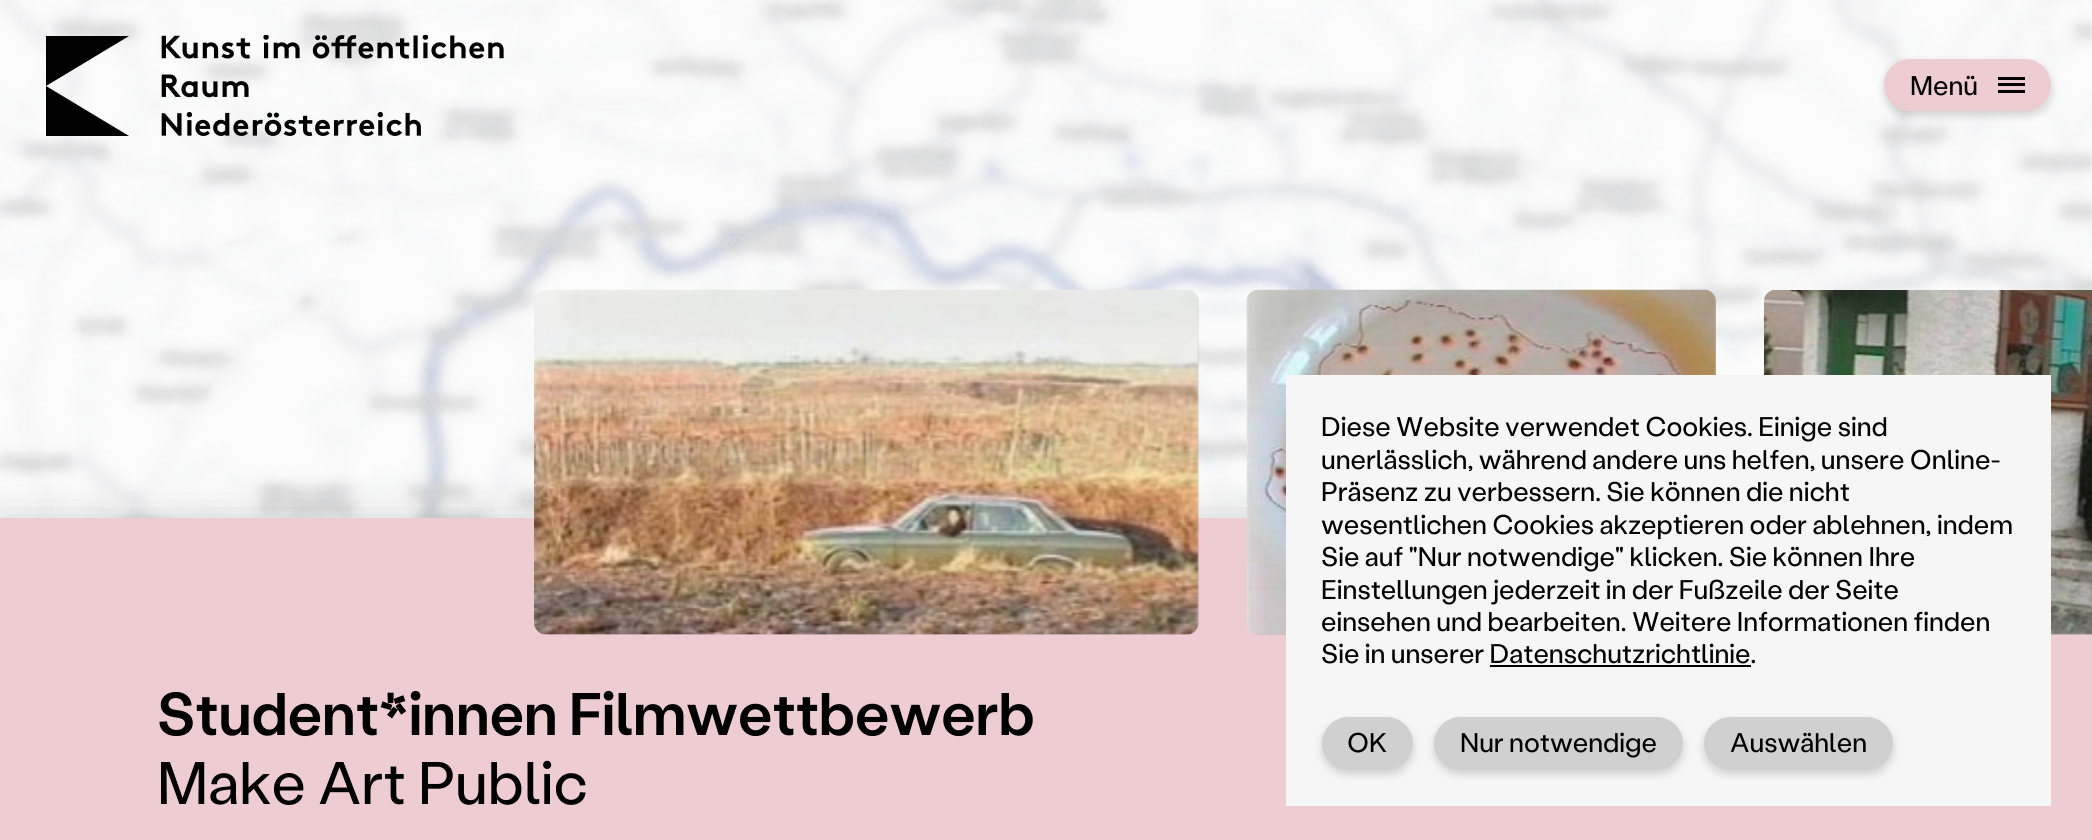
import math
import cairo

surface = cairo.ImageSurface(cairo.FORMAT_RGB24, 2092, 840)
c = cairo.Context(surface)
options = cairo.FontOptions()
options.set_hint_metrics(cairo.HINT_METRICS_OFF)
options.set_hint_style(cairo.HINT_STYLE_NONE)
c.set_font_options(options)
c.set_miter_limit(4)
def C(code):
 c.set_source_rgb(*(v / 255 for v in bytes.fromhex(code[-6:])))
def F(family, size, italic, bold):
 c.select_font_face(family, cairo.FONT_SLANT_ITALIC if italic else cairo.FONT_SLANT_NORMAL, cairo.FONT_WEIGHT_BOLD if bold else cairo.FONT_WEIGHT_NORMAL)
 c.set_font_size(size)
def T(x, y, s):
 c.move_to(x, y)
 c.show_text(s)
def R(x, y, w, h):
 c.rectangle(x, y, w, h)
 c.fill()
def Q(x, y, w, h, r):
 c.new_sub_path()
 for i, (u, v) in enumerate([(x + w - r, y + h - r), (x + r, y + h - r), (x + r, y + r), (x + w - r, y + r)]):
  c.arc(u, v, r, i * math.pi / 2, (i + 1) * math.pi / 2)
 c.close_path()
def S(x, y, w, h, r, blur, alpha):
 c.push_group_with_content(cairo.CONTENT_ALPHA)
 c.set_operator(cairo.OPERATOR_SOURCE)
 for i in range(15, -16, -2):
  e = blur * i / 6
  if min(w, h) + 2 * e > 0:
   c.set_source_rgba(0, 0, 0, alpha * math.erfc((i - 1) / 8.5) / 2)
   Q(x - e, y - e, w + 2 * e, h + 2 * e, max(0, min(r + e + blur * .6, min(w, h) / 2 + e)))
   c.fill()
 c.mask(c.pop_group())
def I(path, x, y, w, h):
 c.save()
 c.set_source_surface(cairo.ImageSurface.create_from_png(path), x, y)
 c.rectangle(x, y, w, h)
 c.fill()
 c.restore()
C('ffffff')
c.paint()
I('1.png',0,0,2092,518)
C('000000')
c.new_path()
c.move_to(46,86)
c.line_to(129,36)
c.line_to(46,36)
c.close_path()
c.fill()
c.new_path()
c.move_to(46,86)
c.line_to(129,136)
c.line_to(46,136)
c.close_path()
c.fill()
I('2.png',161,35,343,101)
C('000000')
S(1884,63,167,53,26.5,4.5,.16)
C('edccd2')
Q(1884,59,167,52,26)
c.fill()
F('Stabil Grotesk',26.95,0,0)
C('000000')
T(1910,95,'Menü')
R(1998,77,27,3)
R(1998,83,27,3)
R(1998,90,27,3)
C('000000')
S(0,518,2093,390,0,22.5,.16)
C('edccd2')
R(0,518,2092,322)
c.set_source_rgba(0,0,0,0.08)
Q(534,290,665,345,12)
c.fill()
I('3.png',534,289,665,346)
Q(1247,290,469,345,12)
c.fill()
I('4.png',1246,289,470,346)
c.new_path()
c.move_to(1776,290)
c.line_to(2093,290)
c.line_to(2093,635)
c.line_to(1776,635)
c.curve_to(1769.5,635,1764,629.5,1764,623)
c.line_to(1764,302)
c.curve_to(1764,295.5,1769.5,290,1776,290)
c.close_path()
c.fill()
I('5.png',1764,290,328,345)
F('Stabil Grotesk Medium',60,0,0)
C('000000')
T(157,735,'Student*innen Filmwettbewerb')
F('Stabil Grotesk',60,0,0)
T(157,804,'Make Art Public')
C('f6f6f6')
R(1286,375,765,431)
F('Stabil Grotesk',26.95,0,0)
C('000000')
T(1321,436,'Diese Website verwendet Cookies. Einige sind')
T(1321,469,'unerlässlich, während andere uns helfen, unsere Online-')
T(1321,501,'Präsenz zu verbessern. Sie können die nicht')
T(1321,534,'wesentlichen Cookies akzeptieren oder ablehnen, indem')
T(1321,566,'Sie auf "Nur notwendige" klicken. Sie können Ihre')
T(1321,599,'Einstellungen jederzeit in der Fußzeile der Seite')
T(1321,631,'einsehen und bearbeiten. Weitere Informationen finden')
T(1321,663,'Sie in unserer Datenschutzrichtlinie.')
R(1490,665,261,2)
C('000000')
S(1322,722,91,52,26,4.5,.16)
C('d0d0d0')
Q(1322,717,91,53,26.5)
c.fill()
C('000000')
T(1347,752,'OK')
C('000000')
S(1434,722,249,52,26,4.5,.16)
C('d0d0d0')
Q(1434,717,249,53,26.5)
c.fill()
C('000000')
T(1460,752,'Nur notwendige')
C('000000')
S(1704,722,189,52,26,4.5,.16)
C('d0d0d0')
Q(1704,717,189,53,26.5)
c.fill()
C('000000')
T(1730,752,'Auswählen')
surface.write_to_png('o.png')
